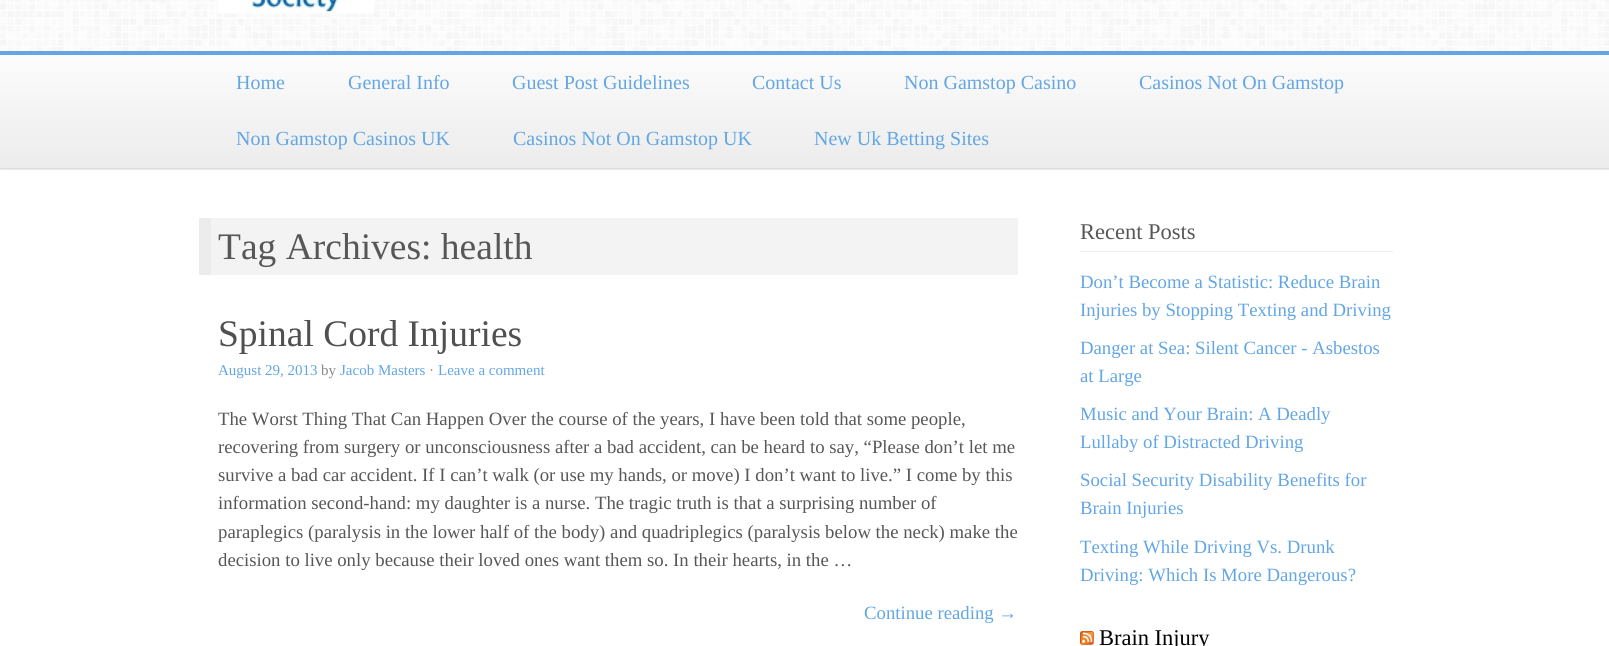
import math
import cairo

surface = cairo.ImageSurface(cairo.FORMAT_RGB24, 1609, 646)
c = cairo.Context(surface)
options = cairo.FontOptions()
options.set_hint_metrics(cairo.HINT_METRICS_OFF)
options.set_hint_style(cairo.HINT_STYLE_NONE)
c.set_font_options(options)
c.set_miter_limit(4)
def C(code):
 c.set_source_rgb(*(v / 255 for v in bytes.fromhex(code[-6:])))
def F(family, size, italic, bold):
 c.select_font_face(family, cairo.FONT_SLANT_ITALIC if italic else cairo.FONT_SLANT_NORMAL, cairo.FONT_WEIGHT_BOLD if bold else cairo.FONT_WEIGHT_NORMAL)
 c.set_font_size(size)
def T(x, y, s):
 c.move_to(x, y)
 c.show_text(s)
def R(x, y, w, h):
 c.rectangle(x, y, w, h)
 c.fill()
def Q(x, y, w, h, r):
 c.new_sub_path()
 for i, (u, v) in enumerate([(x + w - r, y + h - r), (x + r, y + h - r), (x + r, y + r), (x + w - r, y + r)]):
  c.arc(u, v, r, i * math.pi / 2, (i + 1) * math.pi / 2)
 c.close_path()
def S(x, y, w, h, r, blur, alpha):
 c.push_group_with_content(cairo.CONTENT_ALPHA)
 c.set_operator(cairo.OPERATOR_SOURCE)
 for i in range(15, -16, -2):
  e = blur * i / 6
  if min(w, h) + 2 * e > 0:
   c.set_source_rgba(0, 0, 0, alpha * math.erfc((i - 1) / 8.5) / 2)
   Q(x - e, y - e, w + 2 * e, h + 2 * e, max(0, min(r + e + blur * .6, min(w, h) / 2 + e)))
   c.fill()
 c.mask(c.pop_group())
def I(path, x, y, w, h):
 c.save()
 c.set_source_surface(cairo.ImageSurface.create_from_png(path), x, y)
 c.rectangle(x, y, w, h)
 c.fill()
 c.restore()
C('ffffff')
c.paint()
I('1.png',0,0,1609,51)
I('2.png',218,0,156,14)
C('000000')
S(0,53,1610,116,0,1,.2)
gradient = cairo.LinearGradient(805,55,805,168)
gradient.add_color_stop_rgba(0,0.988,0.988,0.988,1)
gradient.add_color_stop_rgba(1,0.925,0.925,0.925,1)
c.set_source(gradient)
R(0,55,1609,113)
C('62a6e4')
R(0,51,1609,4)
F('Liberation Serif',20,0,0)
T(236,89,'Home')
T(348,89,'General Info')
T(512,89,'Guest Post Guidelines')
T(752,89,'Contact Us')
T(904,89,'Non Gamstop Casino')
T(1139,89,'Casinos Not On Gamstop')
T(236,145,'Non Gamstop Casinos UK')
T(513,145,'Casinos Not On Gamstop UK')
T(814,145,'New Uk Betting Sites')
C('f3f3f3')
R(211,218,807,57)
C('ececec')
R(199,218,12,57)
F('Liberation Serif',37.5,0,0)
C('575757')
T(218,259,'Tag Archives: health')
C('505050')
T(218,346,'Spinal Cord Injuries')
F('Liberation Serif',15,0,0)
C('62a6e4')
T(218,375,'August 29, 2013')
C('8a8888')
T(321,375,'by')
C('62a6e4')
T(340,375,'Jacob Masters')
C('8a8888')
T(429,375,'·')
C('62a6e4')
T(438,375,'Leave a comment')
F('Liberation Serif',18.75,0,0)
C('575757')
T(218,425,'The Worst Thing That Can Happen Over the course of the years, I have been told that some people,')
T(218,453,'recovering from surgery or unconsciousness after a bad accident, can be heard to say, “Please don’t let me')
T(218,481,'survive a bad car accident. If I can’t walk (or use my hands, or move) I don’t want to live.” I come by this')
T(218,509,'information second-hand: my daughter is a nurse. The tragic truth is that a surprising number of')
T(218,538,'paraplegics (paralysis in the lower half of the body) and quadriplegics (paralysis below the neck) make the')
T(218,566,'decision to live only because their loved ones want them so. In their hearts, in the …')
C('62a6e4')
T(864,619,'Continue reading →')
C('eeeeee')
R(1080,251,313,1)
F('Liberation Serif',22.5,0,0)
C('575757')
T(1080,239,'Recent Posts')
F('Liberation Serif',18.75,0,0)
C('62a6e4')
T(1080,288,'Don’t Become a Statistic: Reduce Brain')
T(1080,316,'Injuries by Stopping Texting and Driving')
T(1080,354,'Danger at Sea: Silent Cancer - Asbestos')
T(1080,382,'at Large')
T(1080,420,'Music and Your Brain: A Deadly')
T(1080,448,'Lullaby of Distracted Driving')
T(1080,486,'Social Security Disability Benefits for')
T(1080,514,'Brain Injuries')
T(1080,553,'Texting While Driving Vs. Drunk')
T(1080,581,'Driving: Which Is More Dangerous?')
I('3.png',1080,631,14,14)
F('Liberation Serif',22.5,0,0)
C('000000')
T(1099,645,'Brain Injury')
surface.write_to_png('o.png')
